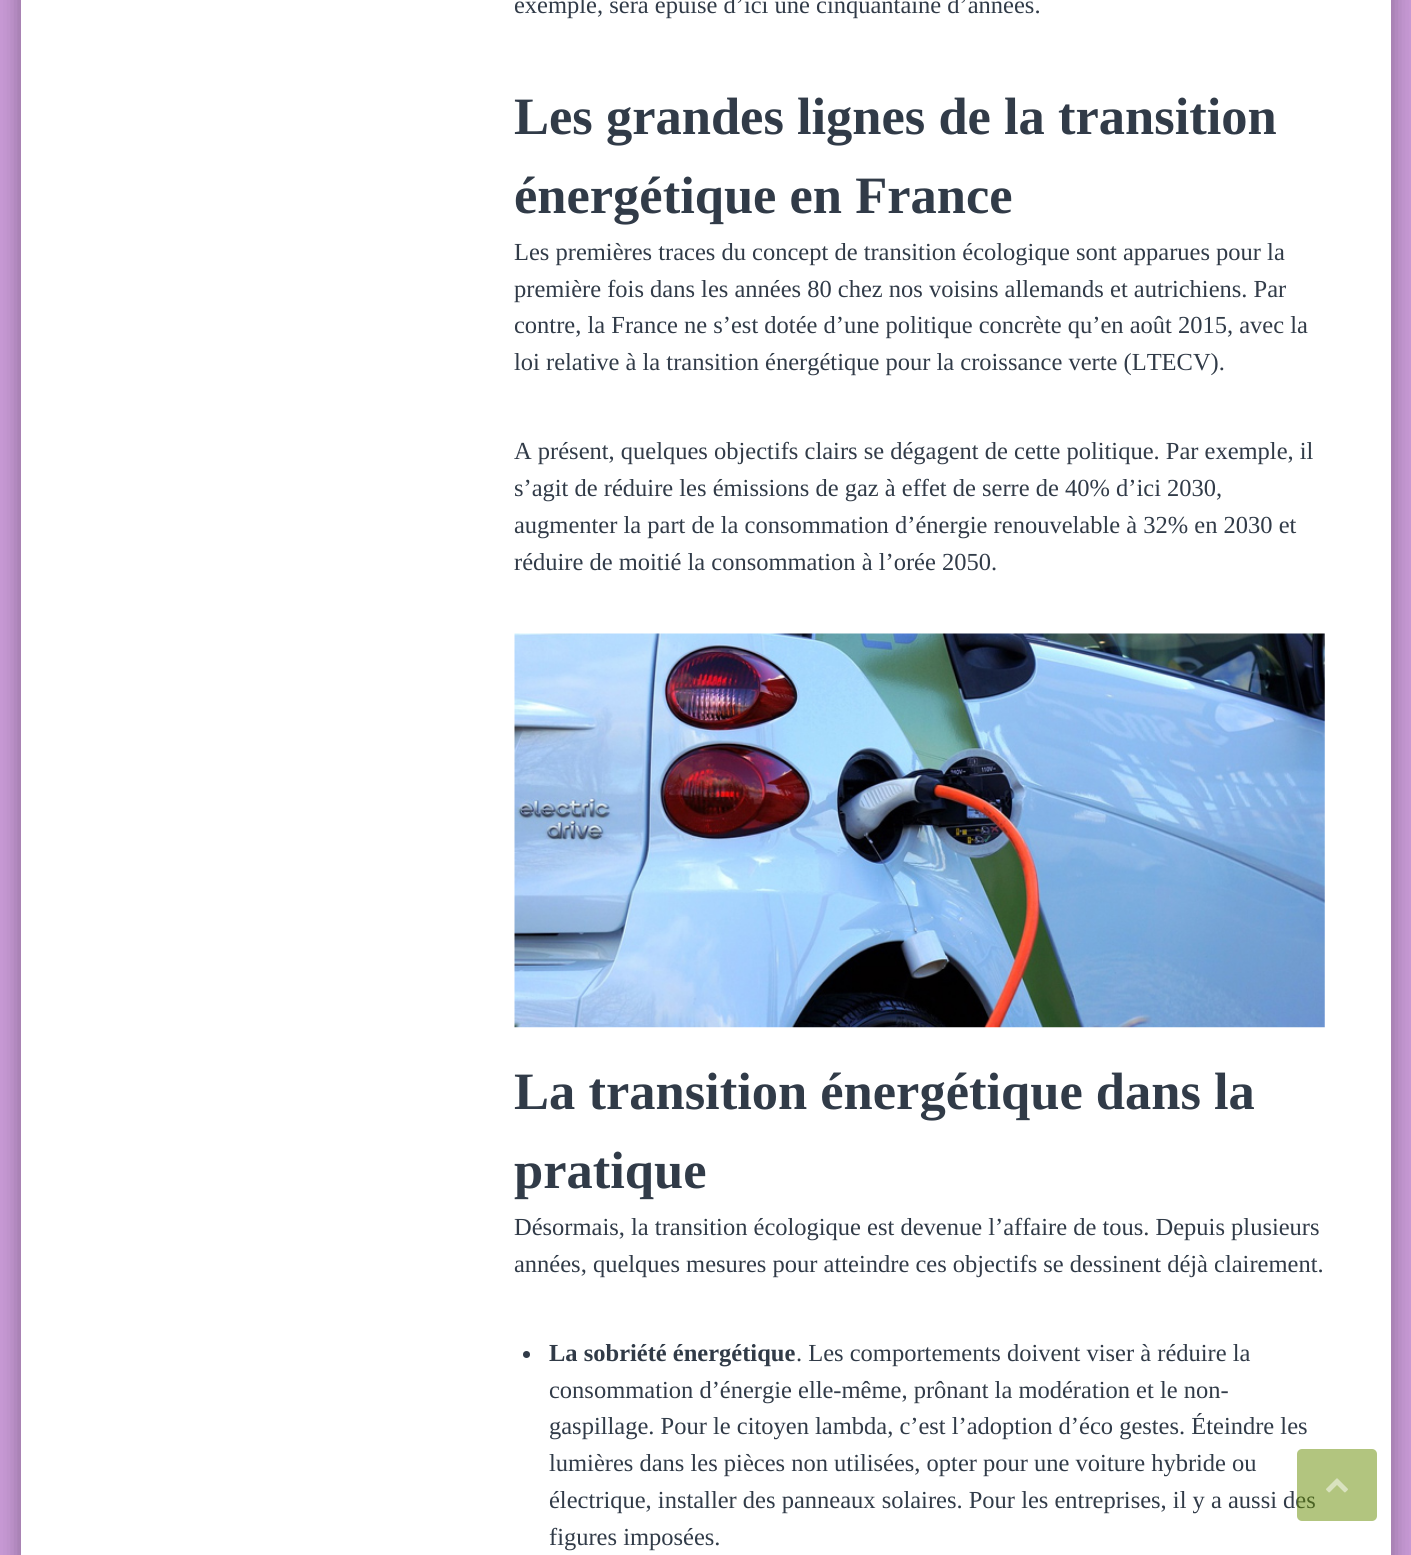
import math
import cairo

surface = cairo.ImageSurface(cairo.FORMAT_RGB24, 1411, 1555)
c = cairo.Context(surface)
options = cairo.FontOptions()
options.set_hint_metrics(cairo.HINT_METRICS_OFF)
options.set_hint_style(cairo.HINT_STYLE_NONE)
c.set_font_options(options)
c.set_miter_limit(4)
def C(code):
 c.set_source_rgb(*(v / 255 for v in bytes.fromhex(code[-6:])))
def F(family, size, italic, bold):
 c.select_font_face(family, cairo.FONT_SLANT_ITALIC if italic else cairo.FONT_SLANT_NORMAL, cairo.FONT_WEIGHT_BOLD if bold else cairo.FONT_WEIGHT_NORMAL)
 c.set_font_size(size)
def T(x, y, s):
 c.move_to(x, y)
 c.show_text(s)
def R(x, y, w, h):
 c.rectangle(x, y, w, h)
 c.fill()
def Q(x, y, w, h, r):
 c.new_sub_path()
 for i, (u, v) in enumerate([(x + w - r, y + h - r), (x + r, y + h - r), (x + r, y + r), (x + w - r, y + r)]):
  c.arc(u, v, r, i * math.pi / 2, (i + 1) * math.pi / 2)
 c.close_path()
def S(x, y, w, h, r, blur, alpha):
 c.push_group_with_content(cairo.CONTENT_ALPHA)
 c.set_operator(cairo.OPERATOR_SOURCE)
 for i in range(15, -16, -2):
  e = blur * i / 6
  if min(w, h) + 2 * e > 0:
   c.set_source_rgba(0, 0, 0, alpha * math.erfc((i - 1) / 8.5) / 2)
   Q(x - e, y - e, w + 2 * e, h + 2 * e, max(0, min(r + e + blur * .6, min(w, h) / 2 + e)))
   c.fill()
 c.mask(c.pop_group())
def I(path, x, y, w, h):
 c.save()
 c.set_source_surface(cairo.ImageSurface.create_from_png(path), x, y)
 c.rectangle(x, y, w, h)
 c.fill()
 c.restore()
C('c89ad6')
c.paint()
C('000000')
S(19,-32,1374,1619,0,10.5,.3)
C('ffffff')
R(21,0,1370,1555)
F('Liberation Serif',24.5,0,0)
C('313b48')
T(514,13,'exemple, sera épuisé d’ici une cinquantaine d’années.')
F('Liberation Serif',52.5,0,1)
T(514,134,'Les grandes lignes de la transition')
T(514,213,'énergétique en France')
F('Liberation Serif',24.5,0,0)
T(514,260,'Les premières traces du concept de transition écologique sont apparues pour la')
T(514,297,'première fois dans les années 80 chez nos voisins allemands et autrichiens. Par')
T(514,333,'contre, la France ne s’est dotée d’une politique concrète qu’en août 2015, avec la')
T(514,370,'loi relative à la transition énergétique pour la croissance verte (LTECV).')
T(514,459,'A présent, quelques objectifs clairs se dégagent de cette politique. Par exemple, il')
T(514,496,'s’agit de réduire les émissions de gaz à effet de serre de 40% d’ici 2030,')
T(514,533,'augmenter la part de la consommation d’énergie renouvelable à 32% en 2030 et')
T(514,570,'réduire de moitié la consommation à l’orée 2050.')
I('1.png',514,633,811,395)
F('Liberation Serif',52.5,0,1)
T(514,1109,'La transition énergétique dans la')
T(514,1188,'pratique')
F('Liberation Serif',24.5,0,0)
T(514,1235,'Désormais, la transition écologique est devenue l’affaire de tous. Depuis plusieurs')
T(514,1272,'années, quelques mesures pour atteindre ces objectifs se dessinent déjà clairement.')
c.new_path()
c.arc(526.5,1354.5,3.5,0,2 * math.pi)
c.fill()
F('Liberation Serif',24.5,0,1)
T(549,1361,'La sobriété énergétique')
F('Liberation Serif',24.5,0,0)
T(796,1361,'. Les comportements doivent viser à réduire la')
T(549,1398,'consommation d’énergie elle-même, prônant la modération et le non-')
T(549,1434,'gaspillage. Pour le citoyen lambda, c’est l’adoption d’éco gestes. Éteindre les')
T(549,1471,'lumières dans les pièces non utilisées, opter pour une voiture hybride ou')
T(549,1508,'électrique, installer des panneaux solaires. Pour les entreprises, il y a aussi des')
T(549,1545,'figures imposées.')
c.set_source_rgba(0.404,0.549,0,0.5)
Q(1297,1449,80,72,5)
c.fill()
I('2.png',1326,1478,22,15)
surface.write_to_png('o.png')
